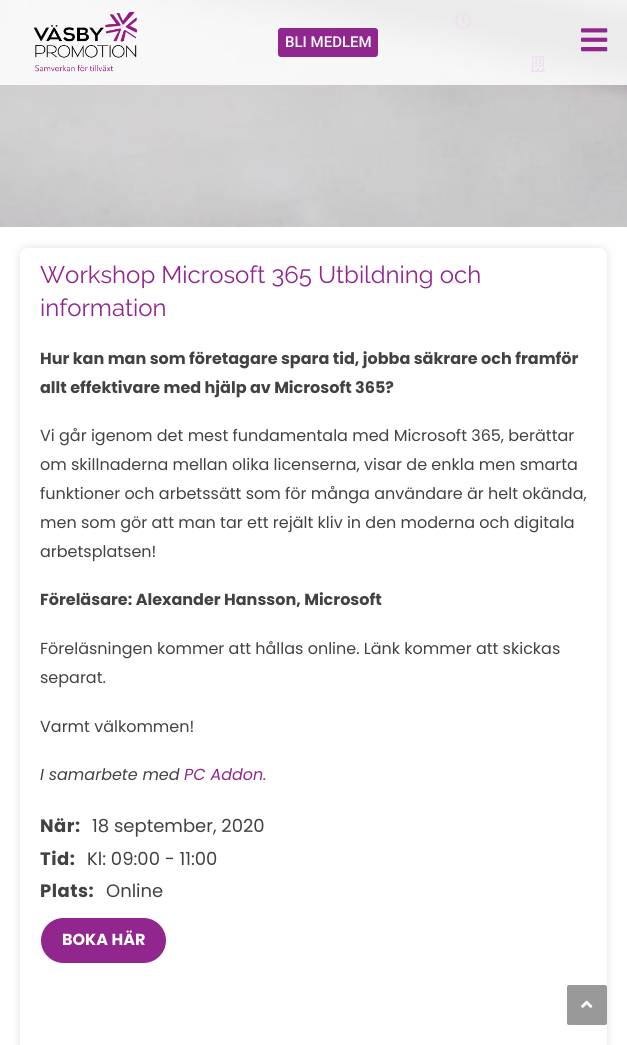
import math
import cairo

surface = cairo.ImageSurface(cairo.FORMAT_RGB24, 627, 1045)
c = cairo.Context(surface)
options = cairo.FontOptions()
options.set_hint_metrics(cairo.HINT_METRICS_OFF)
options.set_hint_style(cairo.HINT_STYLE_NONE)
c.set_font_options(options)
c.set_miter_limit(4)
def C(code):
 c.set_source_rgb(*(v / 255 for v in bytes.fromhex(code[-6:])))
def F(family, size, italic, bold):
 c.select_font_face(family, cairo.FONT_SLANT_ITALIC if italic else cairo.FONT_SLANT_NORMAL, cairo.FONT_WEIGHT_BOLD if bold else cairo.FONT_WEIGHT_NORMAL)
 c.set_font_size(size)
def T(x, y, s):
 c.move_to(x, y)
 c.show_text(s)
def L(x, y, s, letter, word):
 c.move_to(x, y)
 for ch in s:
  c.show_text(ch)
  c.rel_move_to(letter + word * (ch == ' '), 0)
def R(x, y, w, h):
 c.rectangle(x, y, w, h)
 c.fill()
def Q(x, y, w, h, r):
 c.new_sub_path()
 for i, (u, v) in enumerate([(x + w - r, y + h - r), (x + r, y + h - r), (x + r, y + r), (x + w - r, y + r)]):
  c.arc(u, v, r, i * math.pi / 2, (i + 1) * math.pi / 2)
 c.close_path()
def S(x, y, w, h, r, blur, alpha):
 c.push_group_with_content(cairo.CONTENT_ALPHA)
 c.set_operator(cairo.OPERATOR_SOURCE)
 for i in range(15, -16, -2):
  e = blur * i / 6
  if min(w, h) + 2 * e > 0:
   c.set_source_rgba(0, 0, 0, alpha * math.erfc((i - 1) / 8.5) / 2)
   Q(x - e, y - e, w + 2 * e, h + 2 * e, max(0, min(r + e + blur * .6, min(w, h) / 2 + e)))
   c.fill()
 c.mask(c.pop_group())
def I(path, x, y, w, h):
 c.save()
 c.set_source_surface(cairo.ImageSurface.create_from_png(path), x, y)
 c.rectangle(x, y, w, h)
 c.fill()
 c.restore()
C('ffffff')
c.paint()
I('3.png',0,0,627,227)
I('4.png',455,13,16,16)
I('5.png',531,56,14,16)
c.set_source_rgba(1,1,1,0.85)
R(0,0,627,85)
I('1.png',33,11,104,61)
C('91268f')
Q(278,28,100,29,3)
c.fill()
F('Roboto Medium',15,0,0)
C('ffffff')
T(285,47,'BLI MEDLEM')
I('2.png',581,28,27,24)
C('000000')
S(20,248,587,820,8,5,.12)
C('ffffff')
Q(20,248,587,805,8)
c.fill()
F('Raleway',24,0,0)
C('91268f')
T(40,283,'Workshop Microsoft 365 Utbildning och')
T(40,316,'information')
F('Poppins',16,0,1)
C('424242')
T(40,364,'Hur kan man som företagare spara tid, jobba säkrare och framför')
T(40,393,'allt effektivare med hjälp av Microsoft 365?')
F('Poppins',16,0,0)
T(40,441,'Vi går igenom det mest fundamentala med Microsoft 365, berättar')
T(40,470,'om skillnaderna mellan olika licenserna, visar de enkla men smarta')
T(40,499,'funktioner och arbetssätt som för många användare är helt okända,')
T(40,528,'men som gör att man tar ett rejält kliv in den moderna och digitala')
T(40,557,'arbetsplatsen!')
F('Poppins',16,0,1)
T(40,605,'Föreläsare: Alexander Hansson, Microsoft')
F('Poppins',16,0,0)
T(40,654,'Föreläsningen kommer att hållas online. Länk kommer att skickas')
T(40,683,'separat.')
T(40,732,'Varmt välkommen!')
F('Poppins',16,1,0)
T(40,780,'I samarbete med')
C('91268f')
T(184,780,'PC Addon.')
F('Poppins',18,0,1)
C('424242')
L(40,832,'När:',.5,0)
F('Poppins',18,0,0)
T(92,832,'18 september, 2020')
F('Poppins',18,0,1)
L(40,865,'Tid:',.5,0)
F('Poppins',18,0,0)
T(87,865,'Kl: 09:00 - 11:00')
F('Poppins',18,0,1)
L(40,897,'Plats:',.5,0)
F('Poppins',18,0,0)
T(106,897,'Online')
C('91268f')
Q(40.5,917.5,126,46,23)
c.fill_preserve()
C('ffffff')
c.set_line_width(1)
c.stroke()
F('Poppins',16,0,1)
T(62,945,'BOKA HÄR')
C('999999')
Q(567,985,40,40,2)
c.fill()
I('6.png',581,1000,12,8)
surface.write_to_png('o.png')
